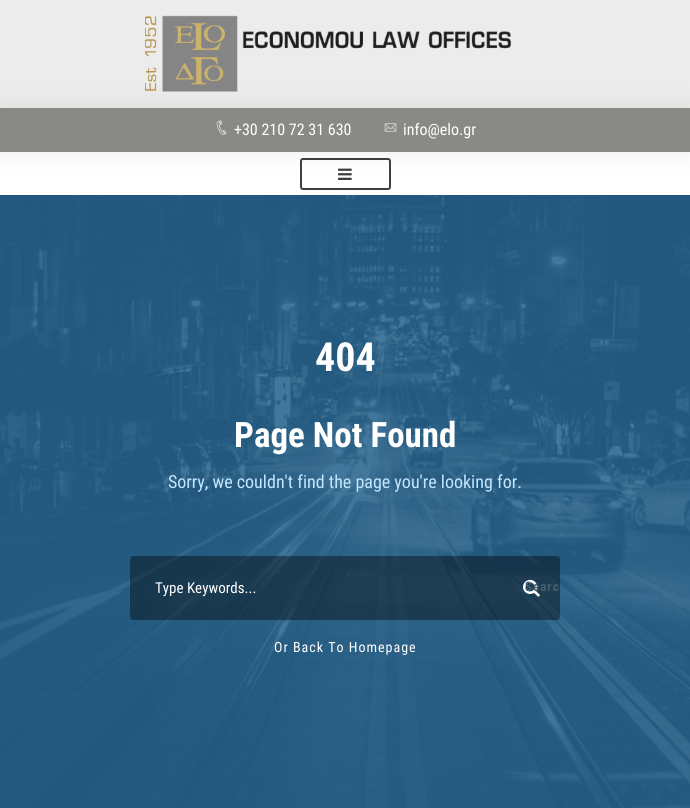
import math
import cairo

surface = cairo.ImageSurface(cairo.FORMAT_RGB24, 690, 808)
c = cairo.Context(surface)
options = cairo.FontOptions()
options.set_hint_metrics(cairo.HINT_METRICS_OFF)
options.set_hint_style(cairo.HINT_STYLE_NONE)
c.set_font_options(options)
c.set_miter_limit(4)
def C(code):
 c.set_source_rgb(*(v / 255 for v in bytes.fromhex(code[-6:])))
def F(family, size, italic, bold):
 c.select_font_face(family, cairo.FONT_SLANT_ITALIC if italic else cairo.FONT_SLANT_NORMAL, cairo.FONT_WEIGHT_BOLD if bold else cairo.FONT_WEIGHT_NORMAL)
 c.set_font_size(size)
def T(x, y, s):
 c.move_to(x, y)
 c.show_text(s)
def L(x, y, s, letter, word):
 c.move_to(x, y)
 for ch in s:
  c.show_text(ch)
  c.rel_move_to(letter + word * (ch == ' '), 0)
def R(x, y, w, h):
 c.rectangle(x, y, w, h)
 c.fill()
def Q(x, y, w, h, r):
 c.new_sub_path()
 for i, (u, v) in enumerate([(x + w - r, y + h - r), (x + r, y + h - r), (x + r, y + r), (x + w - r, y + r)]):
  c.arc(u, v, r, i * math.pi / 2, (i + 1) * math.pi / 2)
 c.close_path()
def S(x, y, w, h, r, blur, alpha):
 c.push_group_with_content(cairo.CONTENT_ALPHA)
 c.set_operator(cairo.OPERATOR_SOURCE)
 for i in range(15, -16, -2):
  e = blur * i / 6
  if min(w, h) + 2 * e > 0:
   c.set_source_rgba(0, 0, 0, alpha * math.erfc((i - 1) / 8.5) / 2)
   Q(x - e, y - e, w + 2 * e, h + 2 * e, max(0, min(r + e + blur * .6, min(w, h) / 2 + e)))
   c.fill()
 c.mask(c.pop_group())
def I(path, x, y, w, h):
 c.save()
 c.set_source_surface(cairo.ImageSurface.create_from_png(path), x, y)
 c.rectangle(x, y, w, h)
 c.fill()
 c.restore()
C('ffffff')
c.paint()
C('ececec')
R(0,0,690,108)
I('1.png',145,15,366,77)
Q(301,159,89,30,2)
C('3f3f3f')
c.stroke()
I('4.png',338,168,14,12)
C('5e3030')
S(0,108,690,44,0,12,.1)
C('898a86')
R(0,108,690,44)
I('2.png',216,120,11,15)
F('Roboto Condensed',16,0,0)
C('ffffff')
T(234,135,'+30 210 72 31 630')
F('Roboto Condensed',13,0,0)
C('c08686')
T(363,135,'·')
I('3.png',384,123,13,9)
F('Roboto Condensed',16,0,0)
C('ffffff')
T(403,135,'info@elo.gr')
C('23618e')
R(0,195,690,613)
I('5.png',0,195,690,613)
F('Roboto Condensed',40,0,1)
C('ffffff')
T(315,371,'404')
F('Roboto Condensed',35,0,1)
T(234,447,'Page Not Found')
F('Roboto Condensed',18,0,0)
C('c3e7ff')
T(168,488,'Sorry, we couldn\'t find the page you\'re looking for.')
c.set_source_rgba(0,0,0,0.4)
Q(130,556,430,64,3)
c.fill()
F('Roboto Condensed',15,0,0)
C('ffffff')
T(155,593,'Type Keywords...')
I('6.png',523,579,17,18)
F('Roboto Condensed',13,0,1)
C('435d6f')
L(525,591,'Searc',1,0)
F('Roboto Condensed',14,0,0)
C('ffffff')
L(274,652,'Or Back To Homepage',1,0)
surface.write_to_png('o.png')
